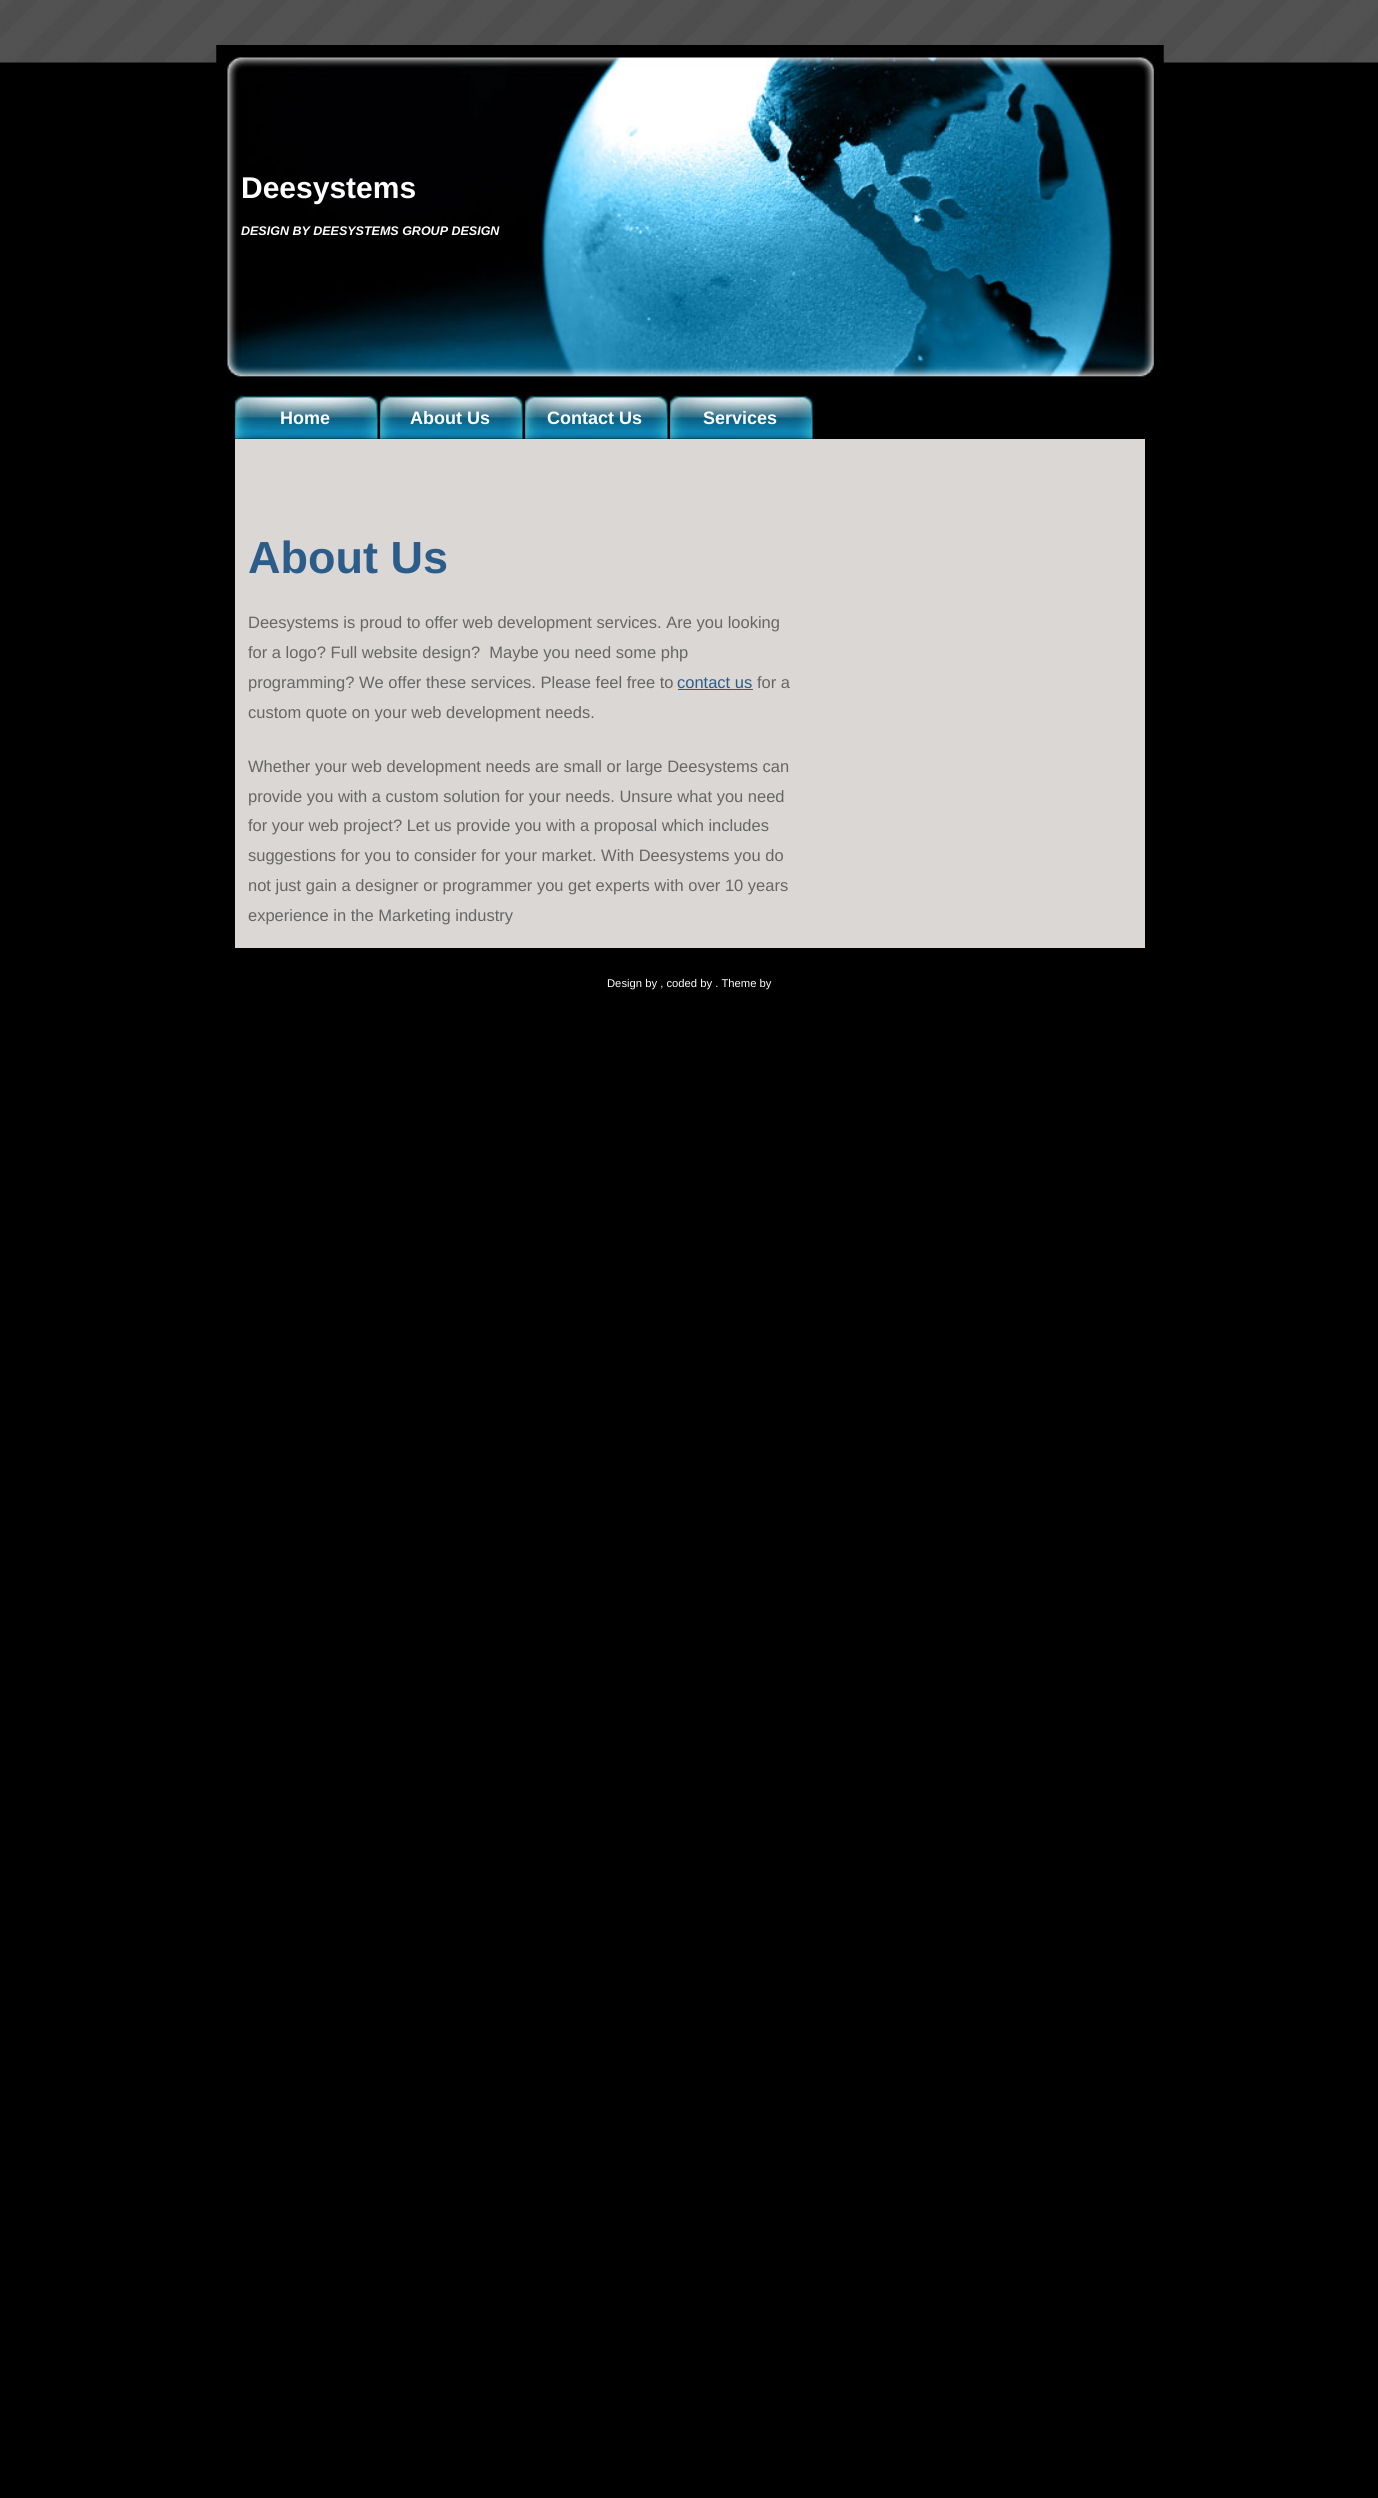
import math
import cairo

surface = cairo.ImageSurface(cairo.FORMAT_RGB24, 1378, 2498)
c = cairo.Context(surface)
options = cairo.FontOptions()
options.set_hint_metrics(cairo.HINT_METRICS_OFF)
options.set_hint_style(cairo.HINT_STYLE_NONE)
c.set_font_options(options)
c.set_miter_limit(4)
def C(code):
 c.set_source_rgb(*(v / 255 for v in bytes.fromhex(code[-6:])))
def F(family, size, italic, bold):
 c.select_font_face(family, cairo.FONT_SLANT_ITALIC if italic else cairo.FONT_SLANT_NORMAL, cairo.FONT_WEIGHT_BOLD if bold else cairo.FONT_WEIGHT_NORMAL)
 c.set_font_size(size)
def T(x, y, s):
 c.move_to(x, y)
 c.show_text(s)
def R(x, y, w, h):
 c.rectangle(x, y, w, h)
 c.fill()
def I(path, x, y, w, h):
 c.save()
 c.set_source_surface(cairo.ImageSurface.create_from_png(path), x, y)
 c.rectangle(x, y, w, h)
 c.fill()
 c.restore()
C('000000')
c.paint()
I('1.png',0,0,1378,63)
I('2.png',216,45,948,336)
F('Liberation Sans',30,0,1)
C('ffffff')
T(241,198,'Deesystems')
F('Liberation Sans',12.5,1,1)
T(241,235,'DESIGN BY DEESYSTEMS GROUP DESIGN')
I('3.png',234,395,144,44)
F('Liberation Sans',18,0,1)
T(280,424,'Home')
I('4.png',379,395,144,44)
T(410,424,'About Us')
I('5.png',524,395,144,44)
T(547,424,'Contact Us')
I('6.png',669,395,144,44)
T(703,424,'Services')
C('dad7d4')
R(235,439,910,509)
F('Liberation Sans',45,0,1)
C('2c5c89')
T(248,573,'About Us')
F('Liberation Sans',16.5,0,0)
C('666666')
T(248,628,'Deesystems is proud to offer web development services. Are you looking')
T(248,658,'for a logo? Full website design?  Maybe you need some php')
T(248,688,'programming? We offer these services. Please feel free to')
C('2c5c89')
T(677,688,'contact us')
R(678,689,75,1)
C('666666')
T(757,688,'for a')
T(248,718,'custom quote on your web development needs.')
T(248,772,'Whether your web development needs are small or large Deesystems can')
T(248,802,'provide you with a custom solution for your needs. Unsure what you need')
T(248,831,'for your web project? Let us provide you with a proposal which includes')
T(248,861,'suggestions for you to consider for your market. With Deesystems you do')
T(248,891,'not just gain a designer or programmer you get experts with over 10 years')
T(248,921,'experience in the Marketing industry')
F('Liberation Sans',11.25,0,0)
C('ffffff')
T(607,987,'Design by , coded by . Theme by')
surface.write_to_png('o.png')
